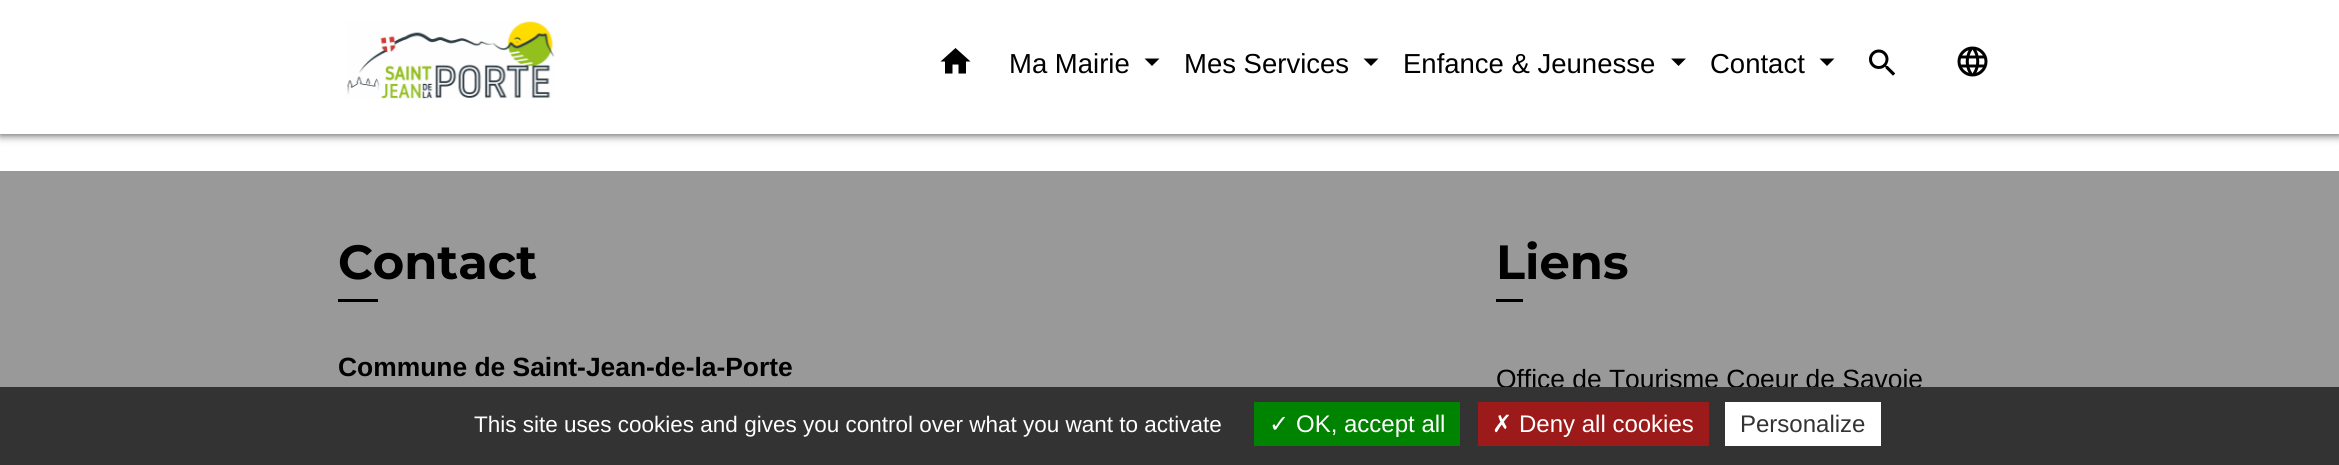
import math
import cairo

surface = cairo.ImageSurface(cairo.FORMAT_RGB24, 2339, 465)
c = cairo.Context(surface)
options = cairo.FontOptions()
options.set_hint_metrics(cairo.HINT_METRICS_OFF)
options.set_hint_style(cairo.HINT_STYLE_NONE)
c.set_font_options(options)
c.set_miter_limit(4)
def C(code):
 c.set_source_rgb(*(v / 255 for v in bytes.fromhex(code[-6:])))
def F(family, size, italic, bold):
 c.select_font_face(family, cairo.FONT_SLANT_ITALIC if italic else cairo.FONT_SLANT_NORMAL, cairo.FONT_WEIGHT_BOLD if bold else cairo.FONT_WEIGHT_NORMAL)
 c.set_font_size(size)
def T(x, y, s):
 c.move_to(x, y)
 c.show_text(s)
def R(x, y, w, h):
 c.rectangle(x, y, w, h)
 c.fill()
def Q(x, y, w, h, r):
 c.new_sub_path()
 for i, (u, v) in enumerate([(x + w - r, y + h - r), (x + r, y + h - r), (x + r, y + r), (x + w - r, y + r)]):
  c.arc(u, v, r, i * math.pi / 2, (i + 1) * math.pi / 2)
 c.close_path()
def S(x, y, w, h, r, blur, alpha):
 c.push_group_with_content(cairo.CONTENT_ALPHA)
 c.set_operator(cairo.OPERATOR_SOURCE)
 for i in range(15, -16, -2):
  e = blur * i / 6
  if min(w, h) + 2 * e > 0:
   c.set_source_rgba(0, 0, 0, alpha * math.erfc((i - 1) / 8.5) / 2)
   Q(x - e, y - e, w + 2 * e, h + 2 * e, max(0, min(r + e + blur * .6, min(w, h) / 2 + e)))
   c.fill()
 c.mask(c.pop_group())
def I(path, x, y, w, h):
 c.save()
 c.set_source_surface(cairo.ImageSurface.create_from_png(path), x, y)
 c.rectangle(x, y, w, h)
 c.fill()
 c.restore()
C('ffffff')
c.paint()
C('535353')
S(0,2,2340,133,0,4.5,1)
C('ffffff')
R(0,0,2339,134)
I('1.png',347,21,208,78)
C('000000')
c.new_path()
c.move_to(952.5,73.5)
c.line_to(945,73.5)
c.line_to(945,61.5)
c.line_to(940.5,61.5)
c.line_to(955.5,48)
c.line_to(970.5,61.5)
c.line_to(966,61.5)
c.line_to(966,73.5)
c.line_to(958.5,73.5)
c.line_to(958.5,64.5)
c.line_to(952.5,64.5)
c.close_path()
c.fill()
F('Liberation Sans',27.5,0,0)
T(1009,73,'Ma Mairie')
c.new_path()
c.move_to(1144.5,58.5)
c.line_to(1159.5,58.5)
c.line_to(1152,66)
c.close_path()
c.fill()
T(1184,73,'Mes Services')
c.new_path()
c.move_to(1363.5,58.5)
c.line_to(1378.5,58.5)
c.line_to(1371,66)
c.close_path()
c.fill()
T(1403,73,'Enfance & Jeunesse')
c.new_path()
c.move_to(1671,58.5)
c.line_to(1686,58.5)
c.line_to(1678.5,66)
c.close_path()
c.fill()
T(1710,73,'Contact')
c.new_path()
c.move_to(1819.5,58.5)
c.line_to(1834.5,58.5)
c.line_to(1827,66)
c.close_path()
c.fill()
I('2.png',1869,49,27,27)
I('3.png',1957,46,31,31)
C('999999')
R(0,171,2339,216)
F('Montserrat',48,0,1)
C('000000')
T(338,279,'Contact')
R(338,299,40,3)
F('Liberation Sans',26.4,0,1)
T(338,376,'Commune de Saint-Jean-de-la-Porte')
F('Montserrat',48,0,1)
T(1496,279,'Liens')
R(1496,299,27,3)
F('Liberation Sans',26.4,0,0)
T(1496,388,'Office de Tourisme Coeur de Savoie')
C('333333')
R(0,387,2339,78)
F('Liberation Sans',22.5,0,0)
C('ffffff')
T(474,432,'This site uses cookies and gives you control over what you want to activate')
C('008300')
R(1254,402,206,44)
F('DejaVu Sans',24,0,0)
C('ffffff')
T(1269,432,'✓')
F('Liberation Sans',24,0,0)
T(1296,432,'OK, accept all')
C('9c1a1a')
R(1478,402,231,44)
F('DejaVu Sans',24,0,0)
C('ffffff')
T(1492,432,'✗')
F('Liberation Sans',24,0,0)
T(1519,432,'Deny all cookies')
R(1725,402,156,44)
C('333333')
T(1740,432,'Personalize')
surface.write_to_png('o.png')
